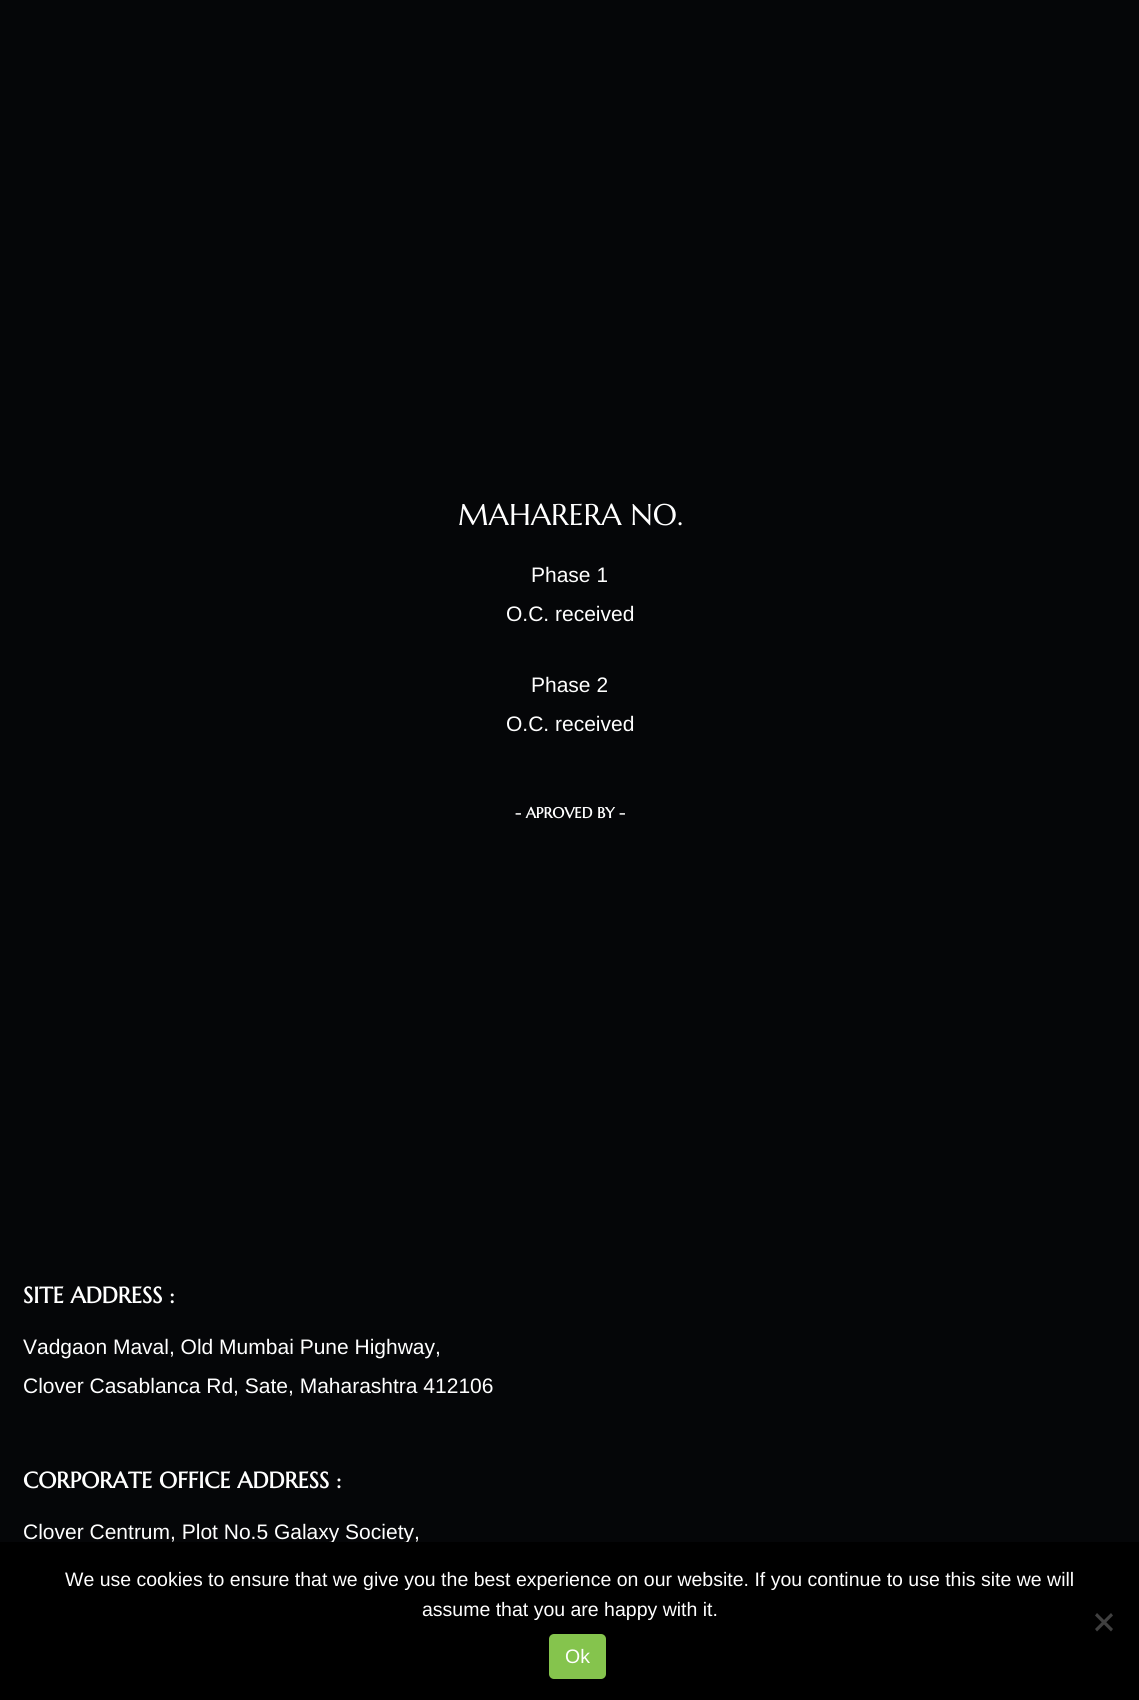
import math
import cairo

surface = cairo.ImageSurface(cairo.FORMAT_RGB24, 1139, 1700)
c = cairo.Context(surface)
options = cairo.FontOptions()
options.set_hint_metrics(cairo.HINT_METRICS_OFF)
options.set_hint_style(cairo.HINT_STYLE_NONE)
c.set_font_options(options)
c.set_miter_limit(4)
def C(code):
 c.set_source_rgb(*(v / 255 for v in bytes.fromhex(code[-6:])))
def F(family, size, italic, bold):
 c.select_font_face(family, cairo.FONT_SLANT_ITALIC if italic else cairo.FONT_SLANT_NORMAL, cairo.FONT_WEIGHT_BOLD if bold else cairo.FONT_WEIGHT_NORMAL)
 c.set_font_size(size)
def T(x, y, s):
 c.move_to(x, y)
 c.show_text(s)
def R(x, y, w, h):
 c.rectangle(x, y, w, h)
 c.fill()
def Q(x, y, w, h, r):
 c.new_sub_path()
 for i, (u, v) in enumerate([(x + w - r, y + h - r), (x + r, y + h - r), (x + r, y + r), (x + w - r, y + r)]):
  c.arc(u, v, r, i * math.pi / 2, (i + 1) * math.pi / 2)
 c.close_path()
C('050608')
c.paint()
F('Marcellus SC',30,0,0)
C('ffffff')
T(458,525,'MAHARERA NO.')
F('Liberation Sans',21,0,0)
T(531,582,'Phase 1')
T(506,621,'O.C. received')
T(531,692,'Phase 2')
T(506,731,'O.C. received')
F('Marcellus SC',15,0,1)
T(515,818,'- APROVED BY -')
F('Marcellus SC',22.5,0,1)
T(23,1303,'SITE ADDRESS :')
F('Liberation Sans',21,0,0)
T(23,1354,'Vadgaon Maval, Old Mumbai Pune Highway,')
T(23,1393,'Clover Casablanca Rd, Sate, Maharashtra 412106')
F('Marcellus SC',22.5,0,1)
T(23,1488,'CORPORATE OFFICE ADDRESS :')
F('Liberation Sans',21,0,0)
T(23,1539,'Clover Centrum, Plot No.5 Galaxy Society,')
C('000000')
R(0,1542,1139,158)
F('Liberation Sans',19.5,0,0)
C('ffffff')
T(65,1586,'We use cookies to ensure that we give you the best experience on our website. If you continue to use this site we will')
T(422,1616,'assume that you are happy with it.')
C('404040')
c.new_path()
c.move_to(1111,1613)
c.line_to(1113,1615.5)
c.line_to(1097,1631.5)
c.line_to(1095,1629)
c.close_path()
c.fill()
c.new_path()
c.move_to(1095,1615.5)
c.line_to(1097,1613)
c.line_to(1113,1629)
c.line_to(1111,1631.5)
c.close_path()
c.fill()
C('85c44d')
Q(549,1634,57,45,5)
c.fill()
C('ffffff')
T(565,1663,'Ok')
surface.write_to_png('o.png')
